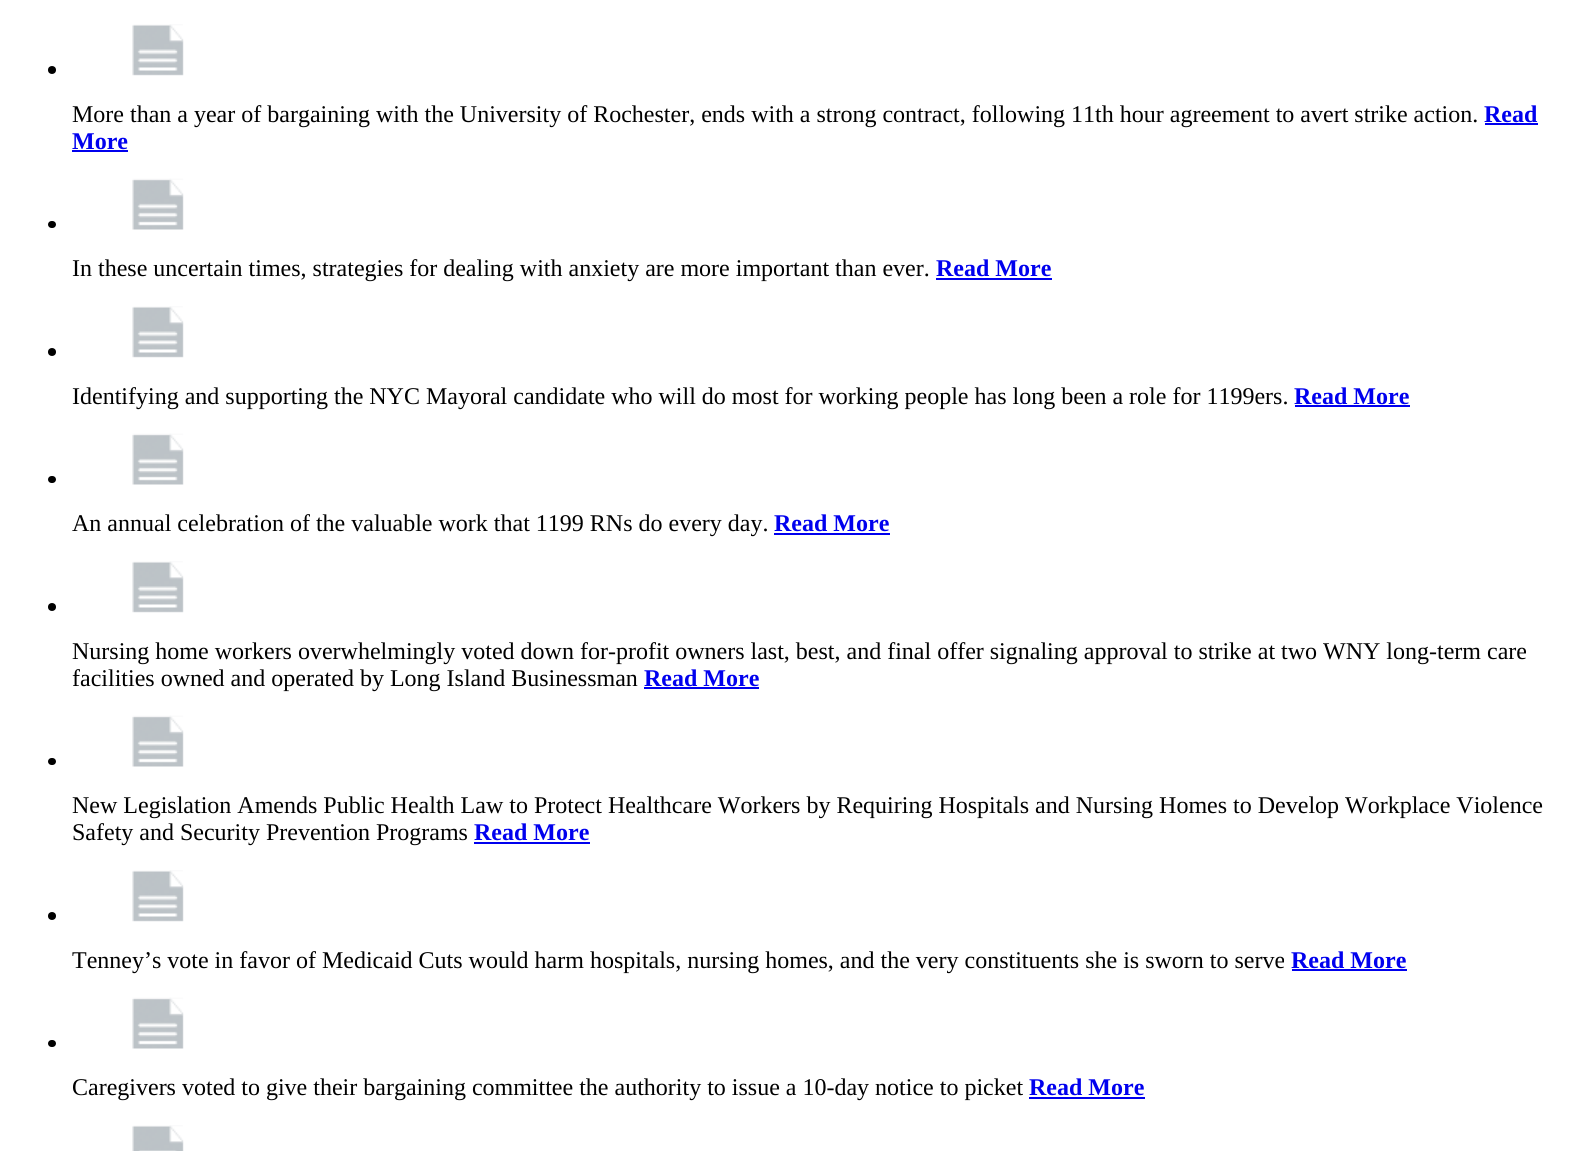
import math
import cairo

surface = cairo.ImageSurface(cairo.FORMAT_RGB24, 1580, 1151)
c = cairo.Context(surface)
options = cairo.FontOptions()
options.set_hint_metrics(cairo.HINT_METRICS_OFF)
options.set_hint_style(cairo.HINT_STYLE_NONE)
c.set_font_options(options)
c.set_miter_limit(4)
def C(code):
 c.set_source_rgb(*(v / 255 for v in bytes.fromhex(code[-6:])))
def F(family, size, italic, bold):
 c.select_font_face(family, cairo.FONT_SLANT_ITALIC if italic else cairo.FONT_SLANT_NORMAL, cairo.FONT_WEIGHT_BOLD if bold else cairo.FONT_WEIGHT_NORMAL)
 c.set_font_size(size)
def T(x, y, s):
 c.move_to(x, y)
 c.show_text(s)
def R(x, y, w, h):
 c.rectangle(x, y, w, h)
 c.fill()
def Q(x, y, w, h, r):
 c.new_sub_path()
 for i, (u, v) in enumerate([(x + w - r, y + h - r), (x + r, y + h - r), (x + r, y + r), (x + w - r, y + r)]):
  c.arc(u, v, r, i * math.pi / 2, (i + 1) * math.pi / 2)
 c.close_path()
def I(path, x, y, w, h):
 c.save()
 c.set_source_surface(cairo.ImageSurface.create_from_png(path), x, y)
 c.rectangle(x, y, w, h)
 c.fill()
 c.restore()
C('ffffff')
c.paint()
C('000000')
c.arc(52,70,4,0,2 * math.pi)
c.fill()
I('1.png',132,24,52,52)
F('Liberation Serif',24,0,0)
T(72,122,'More than a year of bargaining with the University of Rochester, ends with a strong contract, following 11th hour agreement to avert strike action.')
F('Liberation Serif',24,0,1)
C('0000ee')
T(1484,122,'Read')
R(1485,123,53,2)
T(72,149,'More')
R(72,150,56,2)
C('000000')
Q(48,221,8,7,3.5)
c.fill()
I('2.png',132,178,52,52)
F('Liberation Serif',24,0,0)
T(72,276,'In these uncertain times, strategies for dealing with anxiety are more important than ever.')
F('Liberation Serif',24,0,1)
C('0000ee')
T(936,276,'Read More')
R(936,278,116,2)
C('000000')
c.new_path()
c.arc(52,352,4,0,2 * math.pi)
c.fill()
I('1.png',132,306,52,52)
F('Liberation Serif',24,0,0)
T(72,404,'Identifying and supporting the NYC Mayoral candidate who will do most for working people has long been a role for 1199ers.')
F('Liberation Serif',24,0,1)
C('0000ee')
T(1294,404,'Read More')
R(1295,405,115,2)
C('000000')
Q(48,476,8,7,3.5)
c.fill()
I('2.png',132,433,52,52)
F('Liberation Serif',24,0,0)
T(72,531,'An annual celebration of the valuable work that 1199 RNs do every day.')
F('Liberation Serif',24,0,1)
C('0000ee')
T(774,531,'Read More')
R(774,533,116,2)
C('000000')
c.new_path()
c.arc(52,607,4,0,2 * math.pi)
c.fill()
I('1.png',132,561,52,52)
F('Liberation Serif',24,0,0)
T(72,659,'Nursing home workers overwhelmingly voted down for-profit owners last, best, and final offer signaling approval to strike at two WNY long-term care')
T(72,686,'facilities owned and operated by Long Island Businessman')
F('Liberation Serif',24,0,1)
C('0000ee')
T(644,686,'Read More')
R(644,687,115,2)
C('000000')
Q(48,758,8,7,3.5)
c.fill()
I('2.png',132,715,52,52)
F('Liberation Serif',24,0,0)
T(72,813,'New Legislation Amends Public Health Law to Protect Healthcare Workers by Requiring Hospitals and Nursing Homes to Develop Workplace Violence')
T(72,840,'Safety and Security Prevention Programs')
F('Liberation Serif',24,0,1)
C('0000ee')
T(474,840,'Read More')
R(474,842,116,2)
C('000000')
c.new_path()
c.arc(52,916,4,0,2 * math.pi)
c.fill()
I('1.png',132,870,52,52)
F('Liberation Serif',24,0,0)
T(72,968,'Tenney’s vote in favor of Medicaid Cuts would harm hospitals, nursing homes, and the very constituents she is sworn to serve')
F('Liberation Serif',24,0,1)
C('0000ee')
T(1291,968,'Read More')
R(1292,969,115,2)
C('000000')
Q(48,1040,8,7,3.5)
c.fill()
I('2.png',132,997,52,52)
F('Liberation Serif',24,0,0)
T(72,1095,'Caregivers voted to give their bargaining committee the authority to issue a 10-day notice to picket')
F('Liberation Serif',24,0,1)
C('0000ee')
T(1029,1095,'Read More')
R(1029,1097,116,2)
I('3.png',132,1125,52,26)
surface.write_to_png('o.png')
